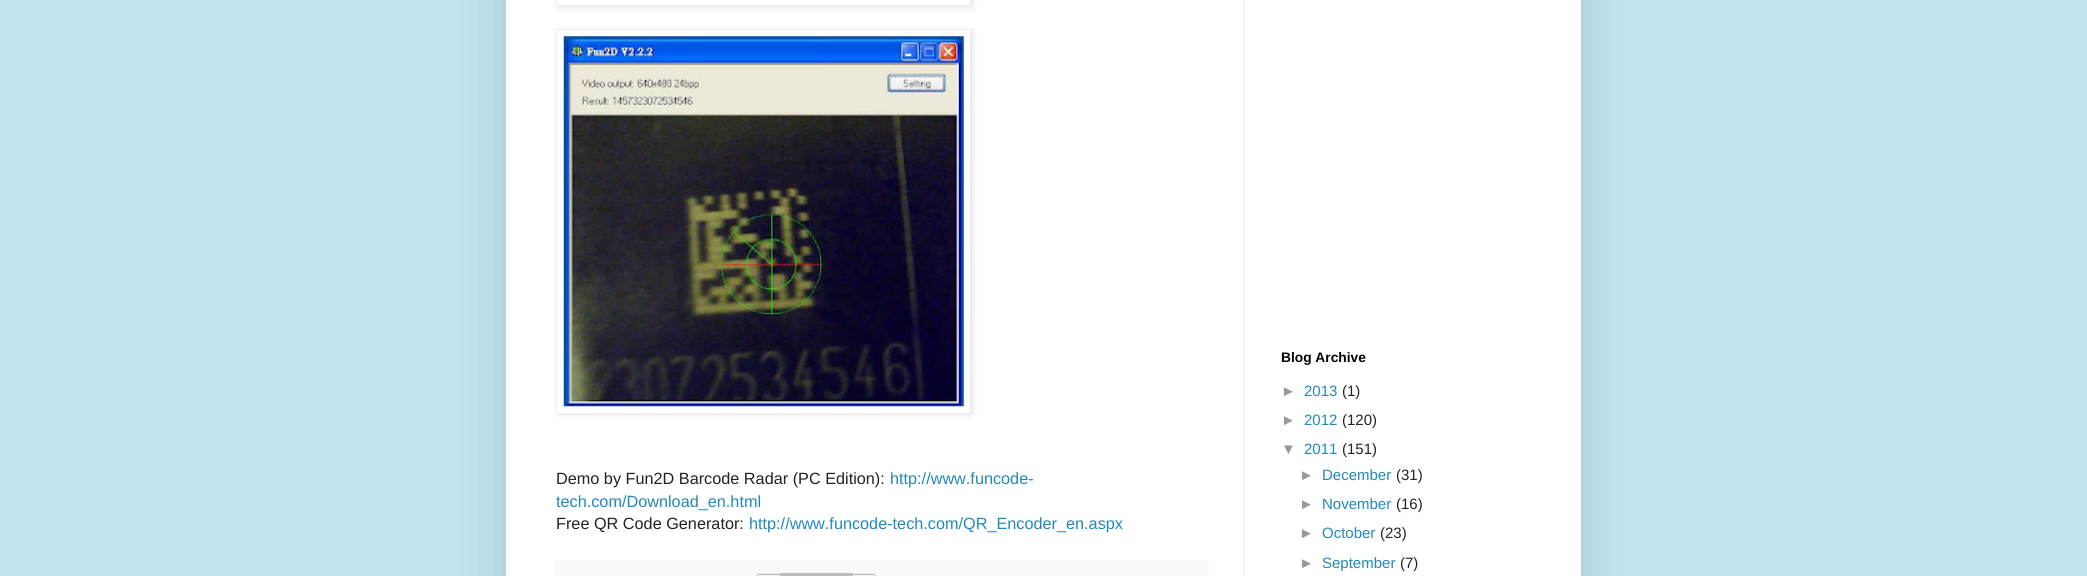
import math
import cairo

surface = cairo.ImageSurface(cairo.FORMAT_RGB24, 2087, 576)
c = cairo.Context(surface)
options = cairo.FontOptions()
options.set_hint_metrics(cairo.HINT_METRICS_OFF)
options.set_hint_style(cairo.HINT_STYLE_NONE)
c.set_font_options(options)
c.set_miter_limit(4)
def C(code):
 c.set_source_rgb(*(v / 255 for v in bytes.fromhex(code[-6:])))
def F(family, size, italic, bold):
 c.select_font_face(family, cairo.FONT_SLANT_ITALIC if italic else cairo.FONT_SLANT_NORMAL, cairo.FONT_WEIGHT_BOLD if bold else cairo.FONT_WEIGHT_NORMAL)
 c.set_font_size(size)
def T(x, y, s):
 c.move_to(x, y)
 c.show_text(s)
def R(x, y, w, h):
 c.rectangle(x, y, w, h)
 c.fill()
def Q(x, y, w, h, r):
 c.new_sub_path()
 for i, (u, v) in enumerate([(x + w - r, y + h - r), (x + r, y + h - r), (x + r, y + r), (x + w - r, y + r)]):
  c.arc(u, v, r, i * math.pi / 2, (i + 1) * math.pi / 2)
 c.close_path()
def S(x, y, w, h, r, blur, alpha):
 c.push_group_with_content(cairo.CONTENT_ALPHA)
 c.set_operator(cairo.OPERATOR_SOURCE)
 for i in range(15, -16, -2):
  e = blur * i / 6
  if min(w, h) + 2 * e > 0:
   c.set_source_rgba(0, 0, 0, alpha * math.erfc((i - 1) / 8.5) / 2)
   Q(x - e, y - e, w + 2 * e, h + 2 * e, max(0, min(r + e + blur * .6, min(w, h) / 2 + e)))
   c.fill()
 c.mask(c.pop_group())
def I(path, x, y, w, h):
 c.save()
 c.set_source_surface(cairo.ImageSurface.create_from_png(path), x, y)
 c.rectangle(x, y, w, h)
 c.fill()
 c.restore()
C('c2e4f2')
c.paint()
C('000000')
S(506,-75,1075,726,0,25,.15)
C('ffffff')
R(506,0,1075,576)
C('eeeeee')
R(1244,0,1,576)
C('000000')
S(558,-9,415,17,0,3,.1)
C('ffffff')
c.rectangle(556.5,-.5,414,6)
c.fill_preserve()
C('eeeeee')
c.set_line_width(1)
c.stroke()
C('000000')
S(558,30,415,385,0,3,.1)
C('ffffff')
c.rectangle(556.5,29.5,414,384)
c.fill_preserve()
C('eeeeee')
c.stroke()
I('1.png',563,36,401,371)
F('Liberation Sans',16.25,0,0)
C('222222')
T(556,484,'Demo by Fun2D Barcode Radar (PC Edition):')
C('2288bb')
T(890,484,'http://www.funcode-')
T(556,507,'tech.com/Download_en.html')
C('222222')
T(556,529,'Free QR Code Generator:')
C('2288bb')
T(749,529,'http://www.funcode-tech.com/QR_Encoder_en.aspx')
C('f9f9f9')
R(554,560,655,16)
I('2.png',756,573,24,3)
C('bebebe')
R(780,573,73,3)
I('3.png',852,573,25,3)
F('Liberation Sans',13.75,0,1)
C('000000')
T(1281,362,'Blog Archive')
F('Liberation Sans',15,0,0)
C('999999')
T(1281,396,'►')
C('2288bb')
T(1304,396,'2013')
C('222222')
T(1342,396,'(1)')
C('999999')
T(1281,425,'►')
C('2288bb')
T(1304,425,'2012')
C('222222')
T(1342,425,'(120)')
C('999999')
T(1281,454,'▼')
C('2288bb')
T(1304,454,'2011')
C('222222')
T(1342,454,'(151)')
C('999999')
T(1299,480,'►')
C('2288bb')
T(1322,480,'December')
C('222222')
T(1396,480,'(31)')
C('999999')
T(1299,509,'►')
C('2288bb')
T(1322,509,'November')
C('222222')
T(1396,509,'(16)')
C('999999')
T(1299,538,'►')
C('2288bb')
T(1322,538,'October')
C('222222')
T(1380,538,'(23)')
C('999999')
T(1299,568,'►')
C('2288bb')
T(1322,568,'September')
C('222222')
T(1400,568,'(7)')
surface.write_to_png('o.png')
